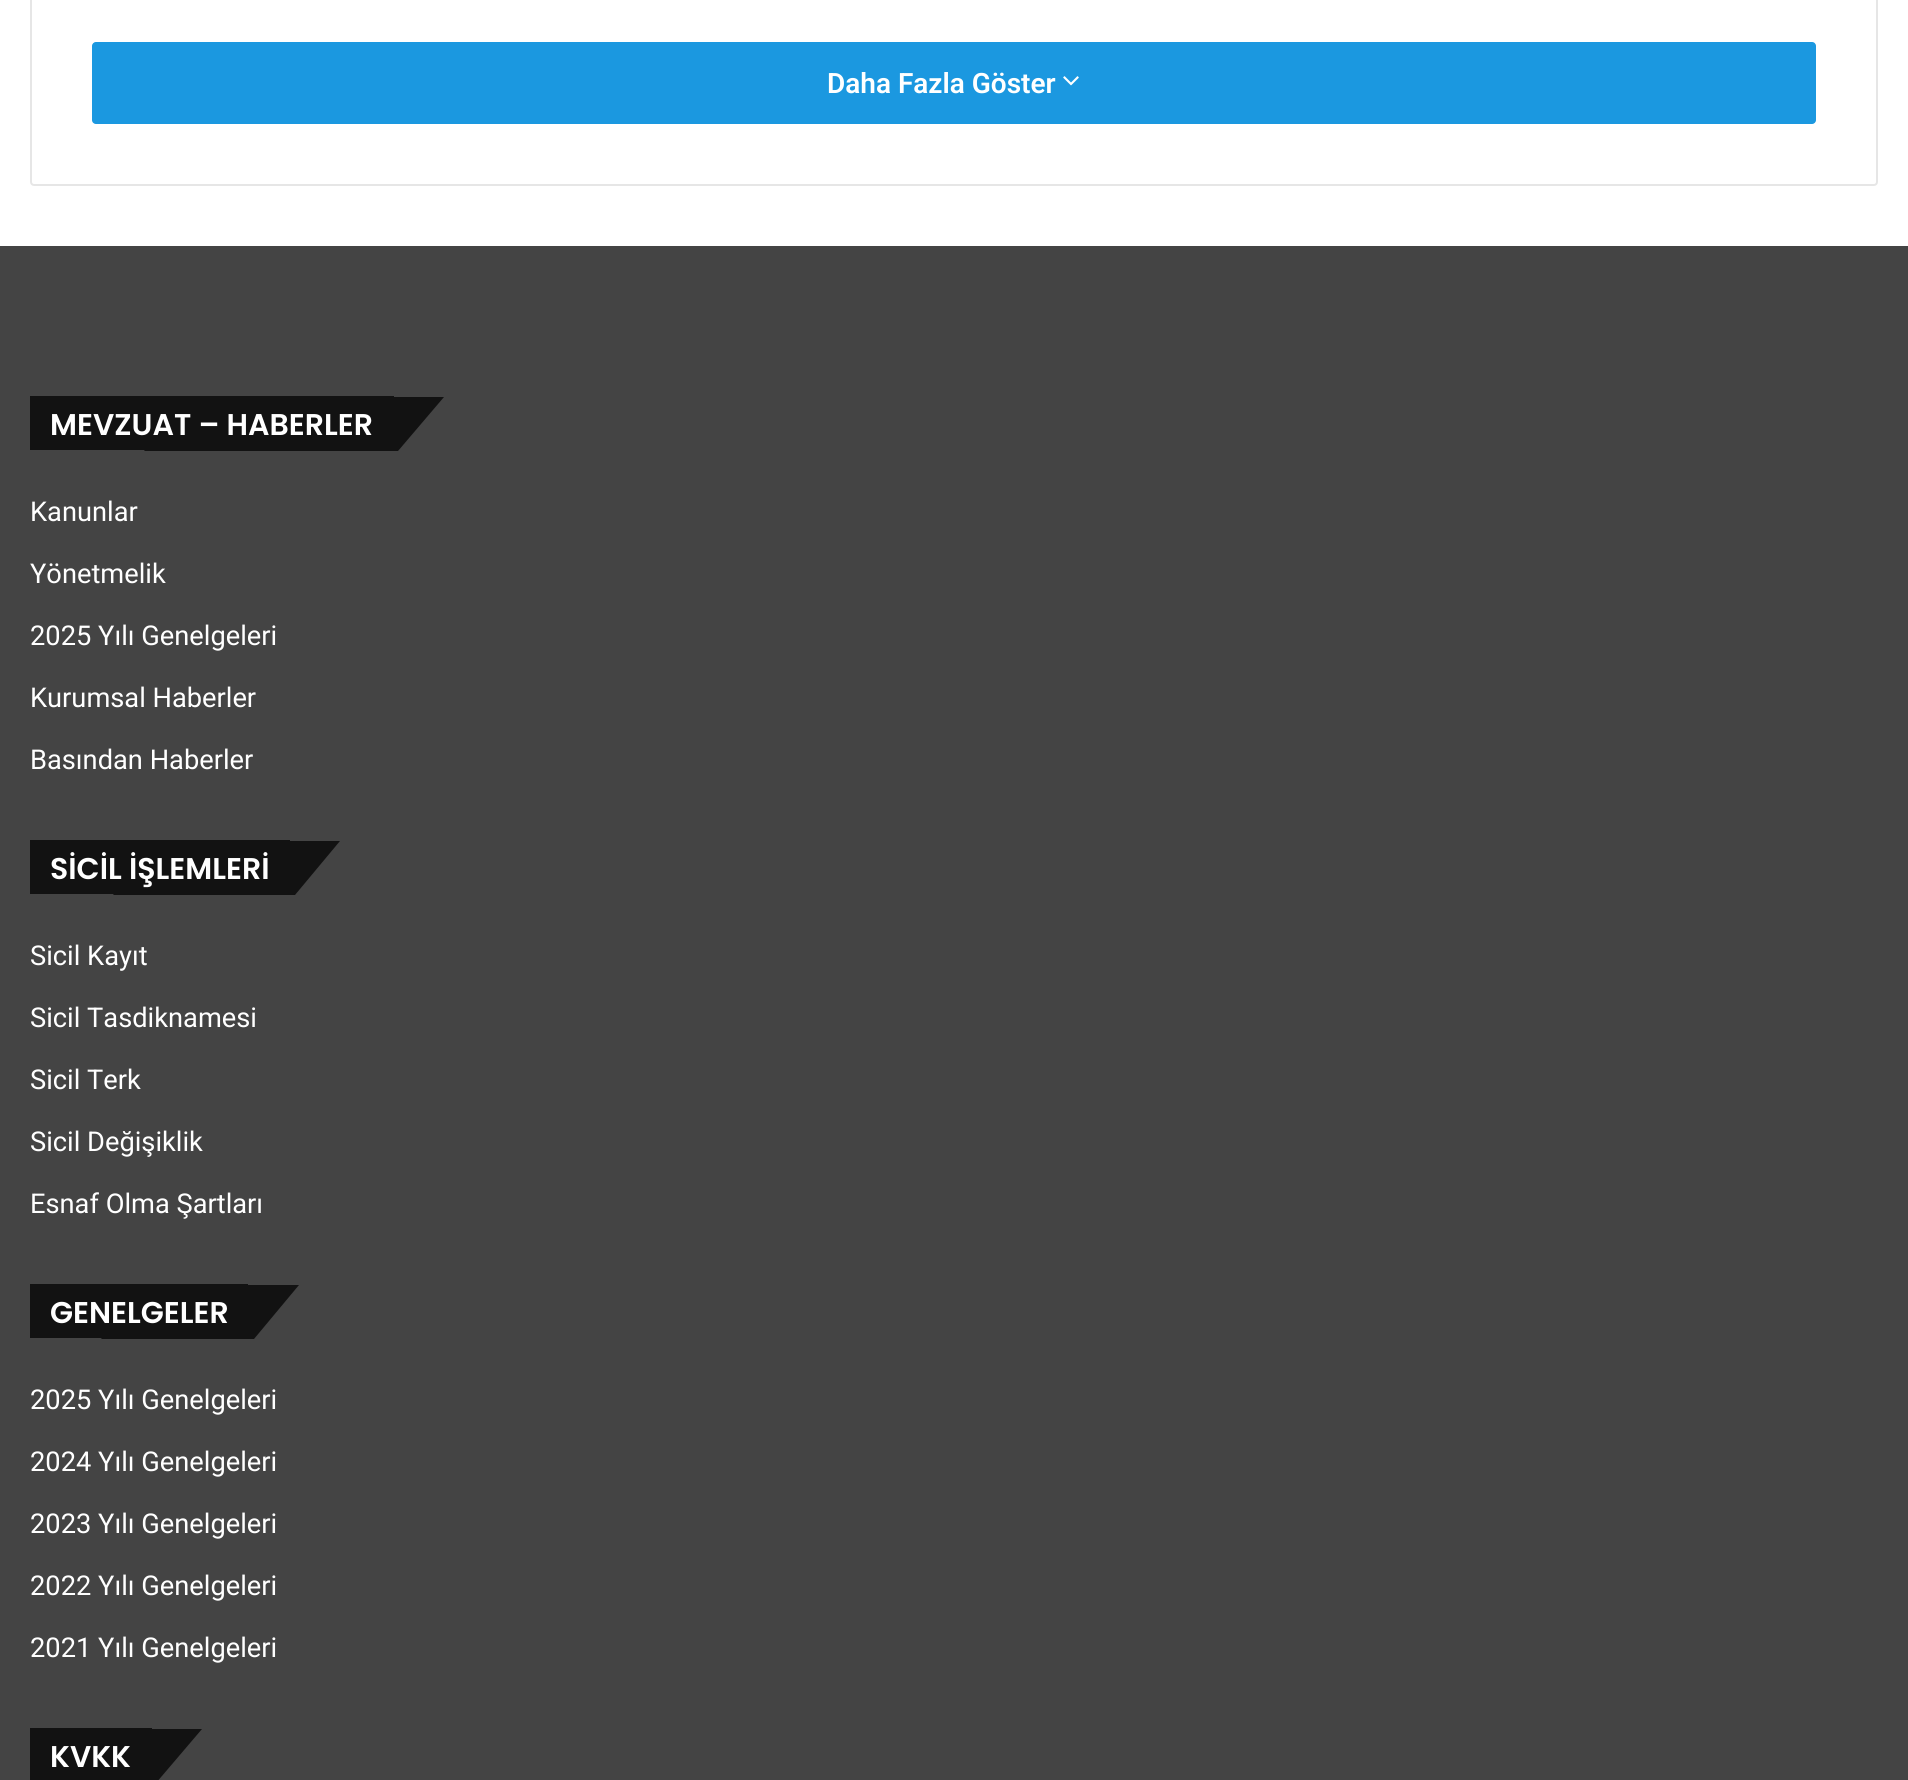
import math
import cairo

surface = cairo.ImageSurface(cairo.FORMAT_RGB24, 1908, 1780)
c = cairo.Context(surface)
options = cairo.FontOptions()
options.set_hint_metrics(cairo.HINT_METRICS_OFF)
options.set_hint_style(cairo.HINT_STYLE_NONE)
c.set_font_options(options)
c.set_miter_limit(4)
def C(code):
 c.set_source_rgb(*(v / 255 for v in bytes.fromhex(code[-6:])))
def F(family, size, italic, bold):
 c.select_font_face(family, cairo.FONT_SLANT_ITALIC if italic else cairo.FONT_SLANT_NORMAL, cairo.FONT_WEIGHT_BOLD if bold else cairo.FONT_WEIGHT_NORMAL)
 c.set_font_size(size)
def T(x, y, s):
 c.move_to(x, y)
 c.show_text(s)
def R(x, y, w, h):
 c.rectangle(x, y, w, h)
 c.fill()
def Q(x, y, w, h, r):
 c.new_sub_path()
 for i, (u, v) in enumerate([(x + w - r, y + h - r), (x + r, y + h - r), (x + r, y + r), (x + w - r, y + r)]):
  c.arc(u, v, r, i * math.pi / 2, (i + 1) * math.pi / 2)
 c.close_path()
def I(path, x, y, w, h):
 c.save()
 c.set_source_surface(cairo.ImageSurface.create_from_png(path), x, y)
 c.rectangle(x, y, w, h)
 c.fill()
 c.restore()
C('ffffff')
c.paint()
Q(31,-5,1846,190,3)
C('e6e6e6')
c.stroke()
C('1b98e0')
Q(92,42,1724,82,4)
c.fill()
F('Roboto SemiBold',28,0,0)
C('ffffff')
T(827,93,'Daha Fazla Göster')
I('1.png',1063,76,16,10)
C('444444')
R(0,246,1908,1534)
C('121212')
R(30,396,364,54)
c.new_path()
c.move_to(190,397)
c.line_to(444,397)
c.line_to(398,451)
c.line_to(144,451)
c.close_path()
c.fill()
F('Poppins SemiBold',30,0,0)
C('ffffff')
T(50,435,'MEVZUAT – HABERLER')
F('Roboto',27.25,0,0)
T(30,521,'Kanunlar')
T(30,583,'Yönetmelik')
T(30,645,'2025 Yılı Genelgeleri')
T(30,707,'Kurumsal Haberler')
T(30,769,'Basından Haberler')
C('121212')
R(30,840,260,54)
c.new_path()
c.move_to(159,841)
c.line_to(340,841)
c.line_to(295,895)
c.line_to(113,895)
c.close_path()
c.fill()
F('Poppins SemiBold',30,0,0)
C('ffffff')
T(50,879,'SİCİL İŞLEMLERİ')
F('Roboto',27.25,0,0)
T(30,965,'Sicil Kayıt')
T(30,1027,'Sicil Tasdiknamesi')
T(30,1089,'Sicil Terk')
T(30,1151,'Sicil Değişiklik')
T(30,1213,'Esnaf Olma Şartları')
C('121212')
R(30,1284,218,54)
c.new_path()
c.move_to(146,1285)
c.line_to(299,1285)
c.line_to(254,1339)
c.line_to(101,1339)
c.close_path()
c.fill()
F('Poppins SemiBold',30,0,0)
C('ffffff')
T(50,1323,'GENELGELER')
F('Roboto',27.25,0,0)
T(30,1409,'2025 Yılı Genelgeleri')
T(30,1471,'2024 Yılı Genelgeleri')
T(30,1533,'2023 Yılı Genelgeleri')
T(30,1595,'2022 Yılı Genelgeleri')
T(30,1657,'2021 Yılı Genelgeleri')
C('121212')
R(30,1728,122,52)
c.new_path()
c.move_to(117,1729)
c.line_to(202,1729)
c.line_to(156,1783)
c.line_to(72,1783)
c.close_path()
c.fill()
F('Poppins SemiBold',30,0,0)
C('ffffff')
T(50,1767,'KVKK')
surface.write_to_png('o.png')
